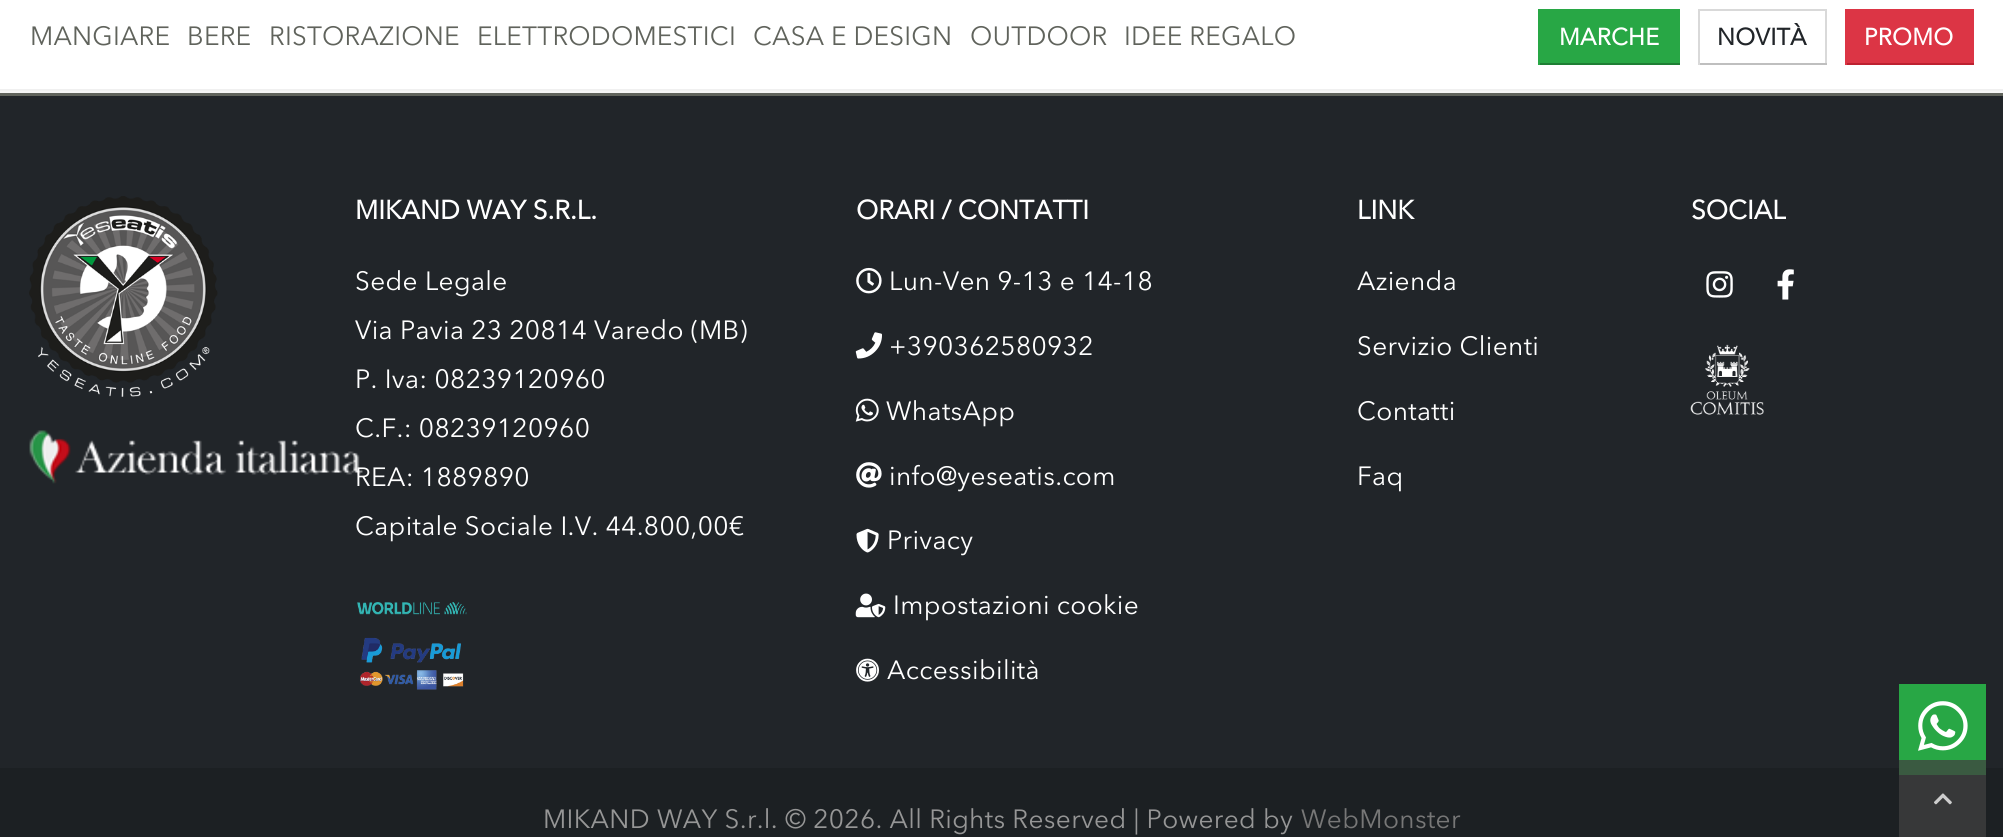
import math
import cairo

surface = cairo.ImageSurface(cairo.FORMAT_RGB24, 2003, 837)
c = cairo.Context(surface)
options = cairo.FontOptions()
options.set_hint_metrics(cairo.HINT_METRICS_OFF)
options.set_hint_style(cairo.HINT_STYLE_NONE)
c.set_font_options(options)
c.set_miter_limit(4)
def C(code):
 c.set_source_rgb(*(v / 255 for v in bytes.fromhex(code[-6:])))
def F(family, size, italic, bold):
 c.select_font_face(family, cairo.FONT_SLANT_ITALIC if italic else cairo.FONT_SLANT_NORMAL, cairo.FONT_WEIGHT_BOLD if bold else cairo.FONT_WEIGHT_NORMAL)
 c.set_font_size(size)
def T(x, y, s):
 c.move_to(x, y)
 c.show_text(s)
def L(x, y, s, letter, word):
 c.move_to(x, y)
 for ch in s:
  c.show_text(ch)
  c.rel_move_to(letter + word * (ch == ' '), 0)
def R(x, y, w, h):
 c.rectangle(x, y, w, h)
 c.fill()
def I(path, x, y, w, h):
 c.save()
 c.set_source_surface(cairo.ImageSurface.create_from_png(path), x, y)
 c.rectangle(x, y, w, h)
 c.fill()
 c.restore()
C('60635c')
c.paint()
C('ffffff')
R(0,0,2003,89)
C('f5f5f5')
R(0,91,2003,2)
C('f0f0f0')
R(0,89,2003,2)
F('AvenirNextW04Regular',26.25,0,0)
C('60635c')
L(30,45,'MANGIARE',.2,0)
L(187,45,'BERE',.2,0)
L(269,45,'RISTORAZIONE',.2,0)
L(477,45,'ELETTRODOMESTICI',.2,0)
L(753,45,'CASA E DESIGN',.2,0)
L(970,45,'OUTDOOR',.2,0)
L(1124,45,'IDEE REGALO',.2,0)
C('28a745')
R(1540,9,140,54)
C('1e7e34')
R(1538,63,142,2)
C('28a745')
R(1538,9,2,56)
F('AvenirNextW04Regular',23.5,0,1)
C('ffffff')
L(1559,45,'MARCHE',.2,0)
C('d9d9d9')
R(1698,9,129,2)
R(1825,9,2,56)
C('bfbfbf')
R(1698,63,129,2)
C('d9d9d9')
R(1698,9,2,56)
C('212529')
L(1717,45,'NOVITÀ',.2,0)
C('dc3545')
R(1847,9,127,54)
C('bd2130')
R(1845,63,129,2)
C('dc3545')
R(1845,9,2,56)
C('ffffff')
L(1864,45,'PROMO',.2,0)
C('212529')
R(0,96,2003,672)
I('1.png',29,196,189,201)
I('2.png',29,430,334,54)
F('AvenirNextW04Regular',26.25,0,1)
C('ffffff')
T(355,219,'MIKAND WAY S.R.L.')
F('AvenirNextW04Regular',26.25,0,0)
L(355,290,'Sede Legale',.35,0)
L(355,339,'Via Pavia 23 20814 Varedo (MB)',.35,0)
L(355,388,'P. Iva: 08239120960',.35,0)
L(355,437,'C.F.: 08239120960',.35,0)
L(355,486,'REA: 1889890',.35,0)
L(355,535,'Capitale Sociale I.V. 44.800,00€',.35,0)
I('3.png',357,602,110,13)
I('4.png',360,637,104,53)
F('AvenirNextW04Regular',26.25,0,1)
T(856,219,'ORARI / CONTATTI')
I('5.png',856,267,26,27)
F('AvenirNextW04Regular',26.25,0,0)
L(889,290,'Lun-Ven 9-13 e 14-18',.35,0)
I('6.png',855,332,27,27)
L(889,355,'+390362580932',.35,0)
I('7.png',855,398,24,24)
L(886,420,'WhatsApp',.35,0)
I('8.png',856,462,26,26)
L(889,485,'info@yeseatis.com',.35,0)
I('9.png',856,528,23,25)
L(887,549,'Privacy',.35,0)
I('10.png',855,593,31,25)
L(893,614,'Impostazioni cookie',.35,0)
I('11.png',856,658,23,24)
L(887,679,'Accessibilità',.35,0)
F('AvenirNextW04Regular',26.25,0,1)
T(1357,219,'LINK')
F('AvenirNextW04Regular',26.25,0,0)
L(1357,290,'Azienda',.35,0)
L(1357,355,'Servizio Clienti',.35,0)
L(1357,420,'Contatti',.35,0)
L(1357,485,'Faq',.35,0)
F('AvenirNextW04Regular',26.25,0,1)
T(1691,219,'SOCIAL')
I('12.png',1706,271,27,27)
I('13.png',1777,269,17,31)
I('14.png',1690,344,74,71)
C('1c2023')
R(0,768,2003,69)
C('373839')
R(1899,775,87,62)
F('AvenirNextW04Regular',26.25,0,0)
C('969696')
L(543,828,'MIKAND WAY S.r.l. © 2026. All Rights Reserved | Powered by',.35,0)
C('777777')
L(1301,828,'WebMonster',.35,0)
C('28a745')
R(1899,684,87,76)
C('3a5a41')
R(1899,760,87,15)
I('15.png',1918,701,50,50)
I('16.png',1934,793,18,12)
surface.write_to_png('o.png')
